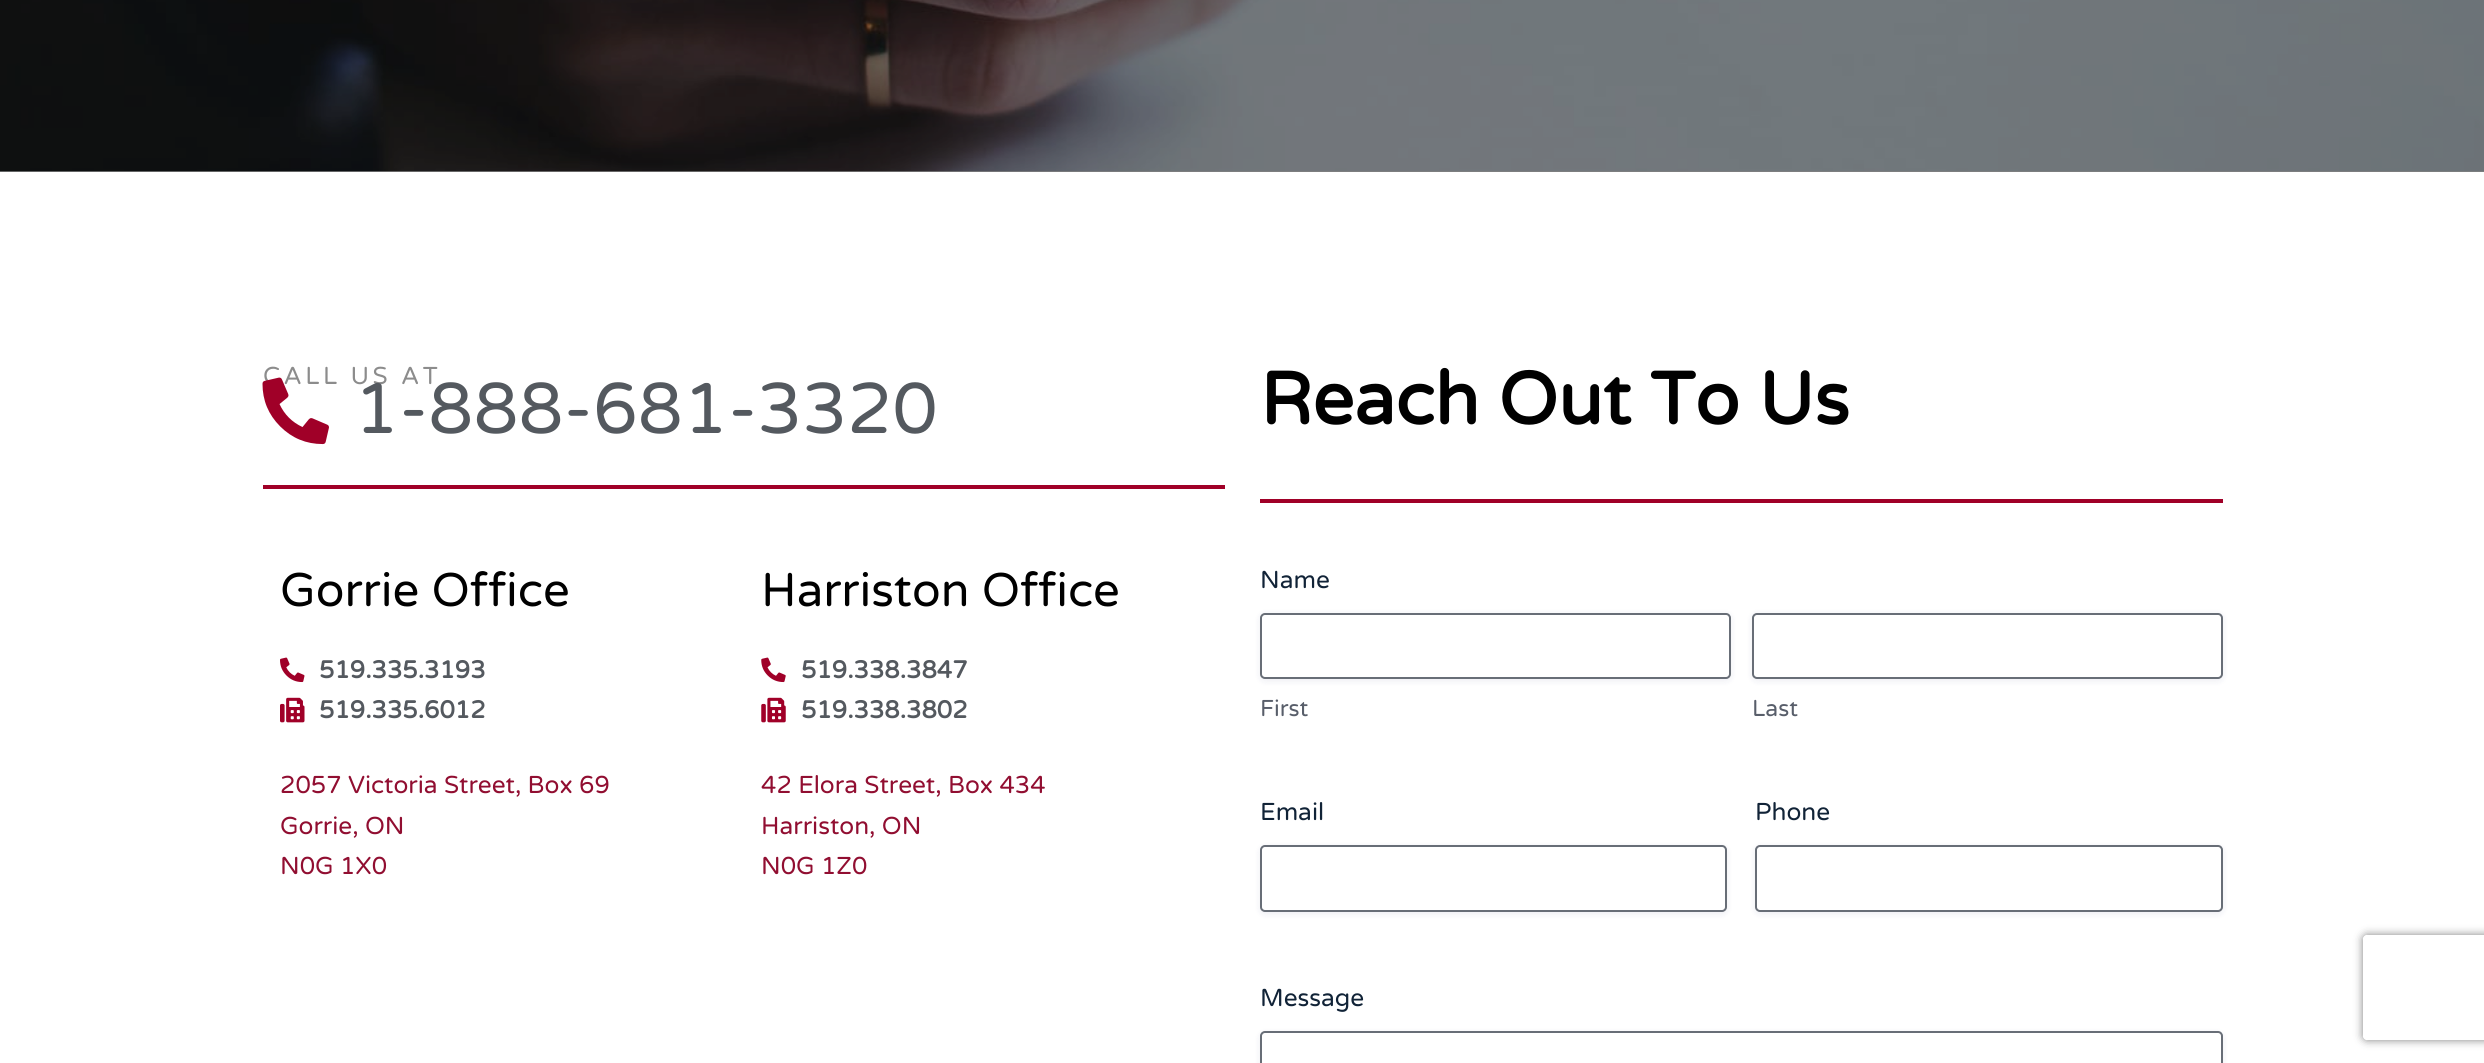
import math
import cairo

surface = cairo.ImageSurface(cairo.FORMAT_RGB24, 2484, 1063)
c = cairo.Context(surface)
options = cairo.FontOptions()
options.set_hint_metrics(cairo.HINT_METRICS_OFF)
options.set_hint_style(cairo.HINT_STYLE_NONE)
c.set_font_options(options)
c.set_miter_limit(4)
def C(code):
 c.set_source_rgb(*(v / 255 for v in bytes.fromhex(code[-6:])))
def F(family, size, italic, bold):
 c.select_font_face(family, cairo.FONT_SLANT_ITALIC if italic else cairo.FONT_SLANT_NORMAL, cairo.FONT_WEIGHT_BOLD if bold else cairo.FONT_WEIGHT_NORMAL)
 c.set_font_size(size)
def T(x, y, s):
 c.move_to(x, y)
 c.show_text(s)
def L(x, y, s, letter, word):
 c.move_to(x, y)
 for ch in s:
  c.show_text(ch)
  c.rel_move_to(letter + word * (ch == ' '), 0)
def R(x, y, w, h):
 c.rectangle(x, y, w, h)
 c.fill()
def Q(x, y, w, h, r):
 c.new_sub_path()
 for i, (u, v) in enumerate([(x + w - r, y + h - r), (x + r, y + h - r), (x + r, y + r), (x + w - r, y + r)]):
  c.arc(u, v, r, i * math.pi / 2, (i + 1) * math.pi / 2)
 c.close_path()
def S(x, y, w, h, r, blur, alpha):
 c.push_group_with_content(cairo.CONTENT_ALPHA)
 c.set_operator(cairo.OPERATOR_SOURCE)
 for i in range(15, -16, -2):
  e = blur * i / 6
  if min(w, h) + 2 * e > 0:
   c.set_source_rgba(0, 0, 0, alpha * math.erfc((i - 1) / 8.5) / 2)
   Q(x - e, y - e, w + 2 * e, h + 2 * e, max(0, min(r + e + blur * .6, min(w, h) / 2 + e)))
   c.fill()
 c.mask(c.pop_group())
def I(path, x, y, w, h):
 c.save()
 c.set_source_surface(cairo.ImageSurface.create_from_png(path), x, y)
 c.rectangle(x, y, w, h)
 c.fill()
 c.restore()
C('ffffff')
c.paint()
C('808080')
R(0,171,2484,1)
I('1.png',0,0,2484,172)
F('Varela Round',24.5,0,0)
C('8c8c8c')
L(263,384,'CALL US AT',3.5,0)
I('2.png',262,377,67,68)
F('Varela Round',71.75,0,0)
C('54595f')
T(354,433,'1-888-681-3320')
C('a00028')
R(263,485,962,4)
F('Varela Round',47.25,0,0)
C('000000')
T(280,606,'Gorrie Office')
I('3.png',280,657,25,26)
F('Varela Round',24.5,0,1)
C('54595f')
T(319,678,'519.335.3193')
I('4.png',280,697,25,26)
T(319,718,'519.335.6012')
F('Varela Round',24.5,0,0)
C('910e31')
T(280,793,'2057 Victoria Street, Box 69')
T(280,834,'Gorrie, ON')
T(280,874,'N0G 1X0')
F('Varela Round',47.25,0,0)
C('000000')
T(761,606,'Harriston Office')
I('5.png',761,657,25,26)
F('Varela Round',24.5,0,1)
C('54595f')
T(801,678,'519.338.3847')
I('6.png',761,697,25,26)
T(801,718,'519.338.3802')
F('Varela Round',24.5,0,0)
C('910e31')
T(761,793,'42 Elora Street, Box 434')
T(761,834,'Harriston, ON')
T(761,874,'N0G 1Z0')
F('Varela Round',73.5,0,1)
C('000000')
T(1260,424,'Reach Out To Us')
C('a00028')
R(1260,499,963,4)
F('Varela Round',24.5,0,0)
C('112337')
T(1260,588,'Name')
C('121961')
S(1260,614,471,67,5,3.5,.08)
C('ffffff')
Q(1261,614,469,64,4)
c.fill_preserve()
C('686e77')
c.stroke()
F('Varela Round',23,0,0)
C('585e6a')
T(1260,716,'First')
C('121961')
S(1752,614,471,67,5,3.5,.08)
C('ffffff')
Q(1753,614,469,64,4)
c.fill_preserve()
C('686e77')
c.stroke()
C('585e6a')
T(1752,716,'Last')
F('Varela Round',24.5,0,0)
C('112337')
T(1260,820,'Email')
C('121961')
S(1260,847,467,67,5,3.5,.08)
C('ffffff')
Q(1261,846,465,65,4)
c.fill_preserve()
C('686e77')
c.stroke()
C('112337')
T(1755,820,'Phone')
C('121961')
S(1755,847,468,67,5,3.5,.08)
C('ffffff')
Q(1756,846,466,65,4)
c.fill_preserve()
C('686e77')
c.stroke()
C('112337')
T(1260,1006,'Message')
C('121961')
S(1260,1033,963,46,5,3.5,.08)
C('ffffff')
Q(1261,1032,961,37,4)
c.fill_preserve()
C('686e77')
c.stroke()
c.save()
c.set_fill_rule(cairo.FILL_RULE_EVEN_ODD)
c.new_path()
c.move_to(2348,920)
c.line_to(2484,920)
c.line_to(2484,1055)
c.line_to(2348,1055)
c.close_path()
c.move_to(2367,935)
c.line_to(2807,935)
c.curve_to(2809,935,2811,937,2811,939)
c.line_to(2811,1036)
c.curve_to(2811,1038,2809,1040,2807,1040)
c.line_to(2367,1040)
c.curve_to(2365,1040,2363,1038,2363,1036)
c.line_to(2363,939)
c.curve_to(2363,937,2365,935,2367,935)
c.close_path()
c.clip()
C('808080')
S(2363,935,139,105,4,4.5,1)
c.restore()
surface.write_to_png('o.png')
